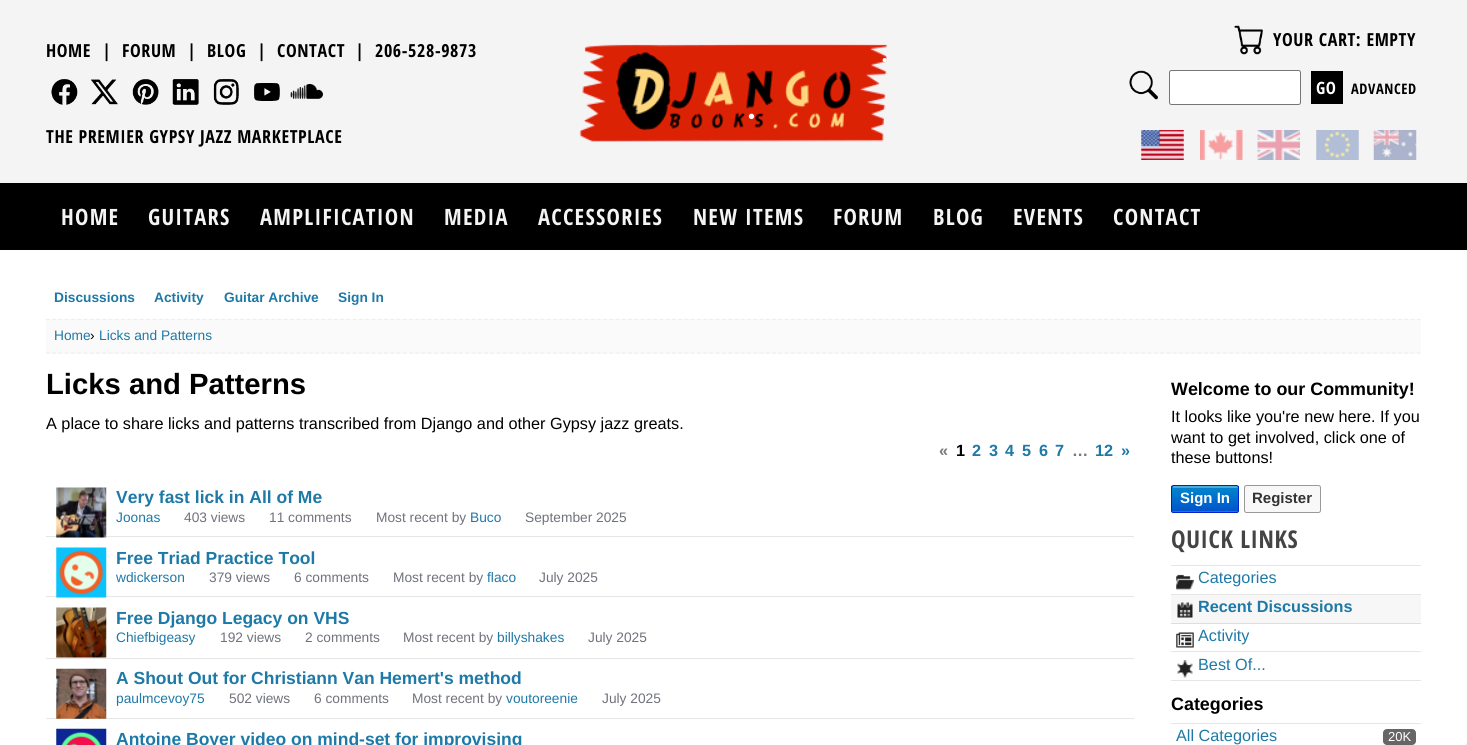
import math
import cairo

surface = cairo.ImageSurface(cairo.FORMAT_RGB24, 1467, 745)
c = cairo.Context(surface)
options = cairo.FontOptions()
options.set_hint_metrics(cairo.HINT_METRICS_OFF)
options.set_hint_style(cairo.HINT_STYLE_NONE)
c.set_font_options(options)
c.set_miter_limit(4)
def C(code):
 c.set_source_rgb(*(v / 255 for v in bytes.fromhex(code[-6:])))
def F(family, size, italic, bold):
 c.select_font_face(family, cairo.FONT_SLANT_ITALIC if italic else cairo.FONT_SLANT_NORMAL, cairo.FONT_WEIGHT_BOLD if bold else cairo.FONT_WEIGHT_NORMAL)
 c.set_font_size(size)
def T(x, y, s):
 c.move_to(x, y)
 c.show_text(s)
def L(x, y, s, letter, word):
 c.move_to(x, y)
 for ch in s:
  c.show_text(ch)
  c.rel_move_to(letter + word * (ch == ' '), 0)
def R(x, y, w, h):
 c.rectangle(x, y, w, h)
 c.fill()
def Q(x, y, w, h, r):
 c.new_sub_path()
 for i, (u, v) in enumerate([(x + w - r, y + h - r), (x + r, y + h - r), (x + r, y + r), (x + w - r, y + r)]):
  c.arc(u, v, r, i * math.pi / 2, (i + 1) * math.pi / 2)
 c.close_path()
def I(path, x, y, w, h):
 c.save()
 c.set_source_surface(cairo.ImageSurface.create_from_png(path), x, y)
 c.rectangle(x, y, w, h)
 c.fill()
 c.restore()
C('ffffff')
c.paint()
C('f4f4f4')
R(0,0,1467,183)
F('Open Sans Condensed',18,0,1)
C('000000')
L(46,57,'HOME',.6,0)
L(102,57,'|',.6,0)
L(122,57,'FORUM',.6,0)
L(187,57,'|',.6,0)
L(207,57,'BLOG',.6,0)
L(257,57,'|',.6,0)
L(277,57,'CONTACT',.6,0)
L(355,57,'|',.6,0)
L(375,57,'206-528-9873',.6,0)
I('1.png',51,79,27,26)
I('2.png',91,79,27,26)
I('3.png',132,79,27,26)
I('4.png',172,79,27,26)
I('5.png',213,79,26,26)
I('6.png',254,83,26,18)
I('7.png',290,84,33,15)
L(46,143,'THE PREMIER GYPSY JAZZ MARKETPLACE',.6,0)
I('8.png',579,43,309,99)
I('9.png',1234,25,29,30)
L(1273,46,'YOUR CART: EMPTY',.6,0)
I('10.png',1129,70,29,30)
C('ffffff')
Q(1169.5,70.5,131,34,2)
c.fill_preserve()
C('767676')
c.set_line_width(1)
c.stroke()
C('000000')
R(1311,71,32,33)
F('Open Sans Condensed',17,0,1)
C('ffffff')
L(1316,94,'GO',.6,0)
F('Open Sans Condensed',14.5,0,1)
C('000000')
L(1351,94,'ADVANCED',.6,0)
I('11.png',1141,130,43,30)
I('12.png',1200,130,43,30)
I('13.png',1257,130,43,30)
I('14.png',1316,130,43,30)
I('15.png',1373,130,44,30)
R(0,183,1467,67)
F('Open Sans Condensed',22.5,0,1)
C('f4f4f4')
L(61,225,'HOME',1.25,0)
L(148,225,'GUITARS',1.25,0)
L(260,225,'AMPLIFICATION',1.25,0)
L(444,225,'MEDIA',1.25,0)
L(538,225,'ACCESSORIES',1.25,0)
L(693,225,'NEW ITEMS',1.25,0)
L(833,225,'FORUM',1.25,0)
L(933,225,'BLOG',1.25,0)
L(1013,225,'EVENTS',1.25,0)
L(1113,225,'CONTACT',1.25,0)
F('Liberation Sans',13.75,0,1)
C('1e79a7')
T(54,302,'Discussions')
T(154,302,'Activity')
T(224,302,'Guitar Archive')
T(338,302,'Sign In')
C('fafafa')
R(46,319,1375,35)
c.new_path()
c.move_to(46,319.5)
c.line_to(1421,319.5)
C('eeeeee')
c.set_line_width(1.2)
c.set_dash([3.75,2.51])
c.stroke()
c.new_path()
c.move_to(46,353)
c.line_to(1421,353)
c.stroke()
F('Liberation Sans',13.75,0,0)
C('1e79a7')
T(54,340,'Home')
C('000000')
T(90,340,'›')
C('1e79a7')
T(99,340,'Licks and Patterns')
F('Liberation Sans',29.25,0,1)
C('000000')
T(46,394,'Licks and Patterns')
F('Liberation Sans',16.25,0,0)
T(46,429,'A place to share licks and patterns transcribed from Django and other Gypsy jazz greats.')
F('Liberation Sans',16.25,0,1)
C('777777')
T(939,456,'«')
C('000000')
T(956,456,'1')
C('1e79a7')
T(972,456,'2')
T(989,456,'3')
T(1005,456,'4')
T(1022,456,'5')
T(1039,456,'6')
T(1055,456,'7')
C('777777')
T(1072,456,'…')
C('1e79a7')
T(1095,456,'12')
T(1121,456,'»')
C('e6e6e6')
R(46,536,1088,1)
I('16.png',56,487,51,51)
F('Liberation Sans',17.5,0,1)
C('1e79a7')
T(116,503,'Very fast lick in All of Me')
F('Liberation Sans',13.75,0,0)
T(116,522,'Joonas')
C('70727c')
T(184,522,'403 views')
T(269,522,'11 comments')
T(376,522,'Most recent by')
C('1e79a7')
T(470,522,'Buco')
C('70727c')
T(525,522,'September 2025')
C('e6e6e6')
R(46,596,1088,1)
I('17.png',56,547,51,51)
F('Liberation Sans',17.5,0,1)
C('1e79a7')
T(116,564,'Free Triad Practice Tool')
F('Liberation Sans',13.75,0,0)
T(116,582,'wdickerson')
C('70727c')
T(209,582,'379 views')
T(294,582,'6 comments')
T(393,582,'Most recent by')
C('1e79a7')
T(487,582,'flaco')
C('70727c')
T(539,582,'July 2025')
C('e6e6e6')
R(46,658,1088,1)
I('18.png',56,607,51,51)
F('Liberation Sans',17.5,0,1)
C('1e79a7')
T(116,624,'Free Django Legacy on VHS')
F('Liberation Sans',13.75,0,0)
T(116,642,'Chiefbigeasy')
C('70727c')
T(220,642,'192 views')
T(305,642,'2 comments')
T(403,642,'Most recent by')
C('1e79a7')
T(497,642,'billyshakes')
C('70727c')
T(588,642,'July 2025')
C('e6e6e6')
R(46,718,1088,1)
I('19.png',56,668,51,51)
F('Liberation Sans',17.5,0,1)
C('1e79a7')
T(116,684,'A Shout Out for Christiann Van Hemert\'s method')
F('Liberation Sans',13.75,0,0)
T(116,703,'paulmcevoy75')
C('70727c')
T(229,703,'502 views')
T(314,703,'6 comments')
T(412,703,'Most recent by')
C('1e79a7')
T(506,703,'voutoreenie')
C('70727c')
T(602,703,'July 2025')
I('20.png',56,728,51,17)
F('Liberation Sans',17.5,0,1)
C('1e79a7')
T(116,745,'Antoine Boyer video on mind-set for improvising')
F('Liberation Sans',17.9,0,1)
C('000000')
T(1171,395,'Welcome to our Community!')
F('Liberation Sans',16.25,0,0)
T(1171,422,'It looks like you\'re new here. If you')
T(1171,443,'want to get involved, click one of')
T(1171,463,'these buttons!')
gradient = cairo.LinearGradient(1173,511,1173,486)
gradient.add_color_stop_rgba(0,0,0.333,0.8,1)
gradient.add_color_stop_rgba(1,0,0.533,0.8,1)
c.set_source(gradient)
R(1171,486,68,25)
c.save()
Q(1171,485,68,28,2.5)
c.clip()
gradient = cairo.LinearGradient(1173,536,1173,511)
gradient.add_color_stop_rgba(0,0,0.333,0.8,1)
gradient.add_color_stop_rgba(1,0,0.533,0.8,1)
c.set_source(gradient)
R(1171,511,68,2)
c.restore()
c.set_source_rgba(1,1,1,0.3)
c.new_path()
c.move_to(1174,488)
c.line_to(1236,488)
c.curve_to(1237,488,1238,488,1238,489)
c.curve_to(1238,483,1234,486,1226,486)
c.line_to(1174,486)
c.curve_to(1173,486,1173,487,1173,488)
c.close_path()
c.fill()
Q(1171.5,485.5,67,27,2)
C('0022cc')
c.set_line_width(1)
c.set_dash([])
c.stroke()
F('Liberation Sans',15,0,1)
C('ffffff')
T(1180,503,'Sign In')
C('f8f8f8')
Q(1244.5,485.5,76,27,2)
c.fill_preserve()
C('999999')
c.stroke()
C('333333')
T(1252,503,'Register')
F('Open Sans Condensed',24.5,0,1)
C('444444')
L(1171,548,'QUICK LINKS',.6,0)
C('e6e6e6')
R(1171,565,250,1)
R(1171,594,250,1)
I('21.png',1176,574,18,17)
F('Liberation Sans',16.25,0,0)
C('1e79a7')
T(1198,583,'Categories')
C('f7f7f7')
R(1171,595,250,28)
C('dedede')
R(1171,623,250,1)
I('22.png',1177,602,16,16)
F('Liberation Sans',16.25,0,1)
C('1e79a7')
T(1198,612,'Recent Discussions')
C('e6e6e6')
R(1171,651,250,1)
I('23.png',1176,632,18,16)
F('Liberation Sans',16.25,0,0)
C('1e79a7')
T(1198,641,'Activity')
C('e6e6e6')
R(1171,680,250,1)
I('24.png',1177,660,16,18)
C('1e79a7')
T(1198,670,'Best Of...')
F('Liberation Sans',17.9,0,1)
C('000000')
T(1171,710,'Categories')
C('e6e6e6')
R(1171,723,250,1)
F('Liberation Sans',16.25,0,0)
C('1e79a7')
T(1176,741,'All Categories')
C('666666')
Q(1383,729,33,16,4)
c.fill()
F('Liberation Sans',13,0,0)
C('ffffff')
T(1388,741,'20K')
F('Liberation Sans',15,0,0)
T(882,65,'•')
F('Liberation Sans',20,0,0)
T(748,123,'•')
C('f5f5f5')
R(1465,743,2,2)
surface.write_to_png('o.png')
